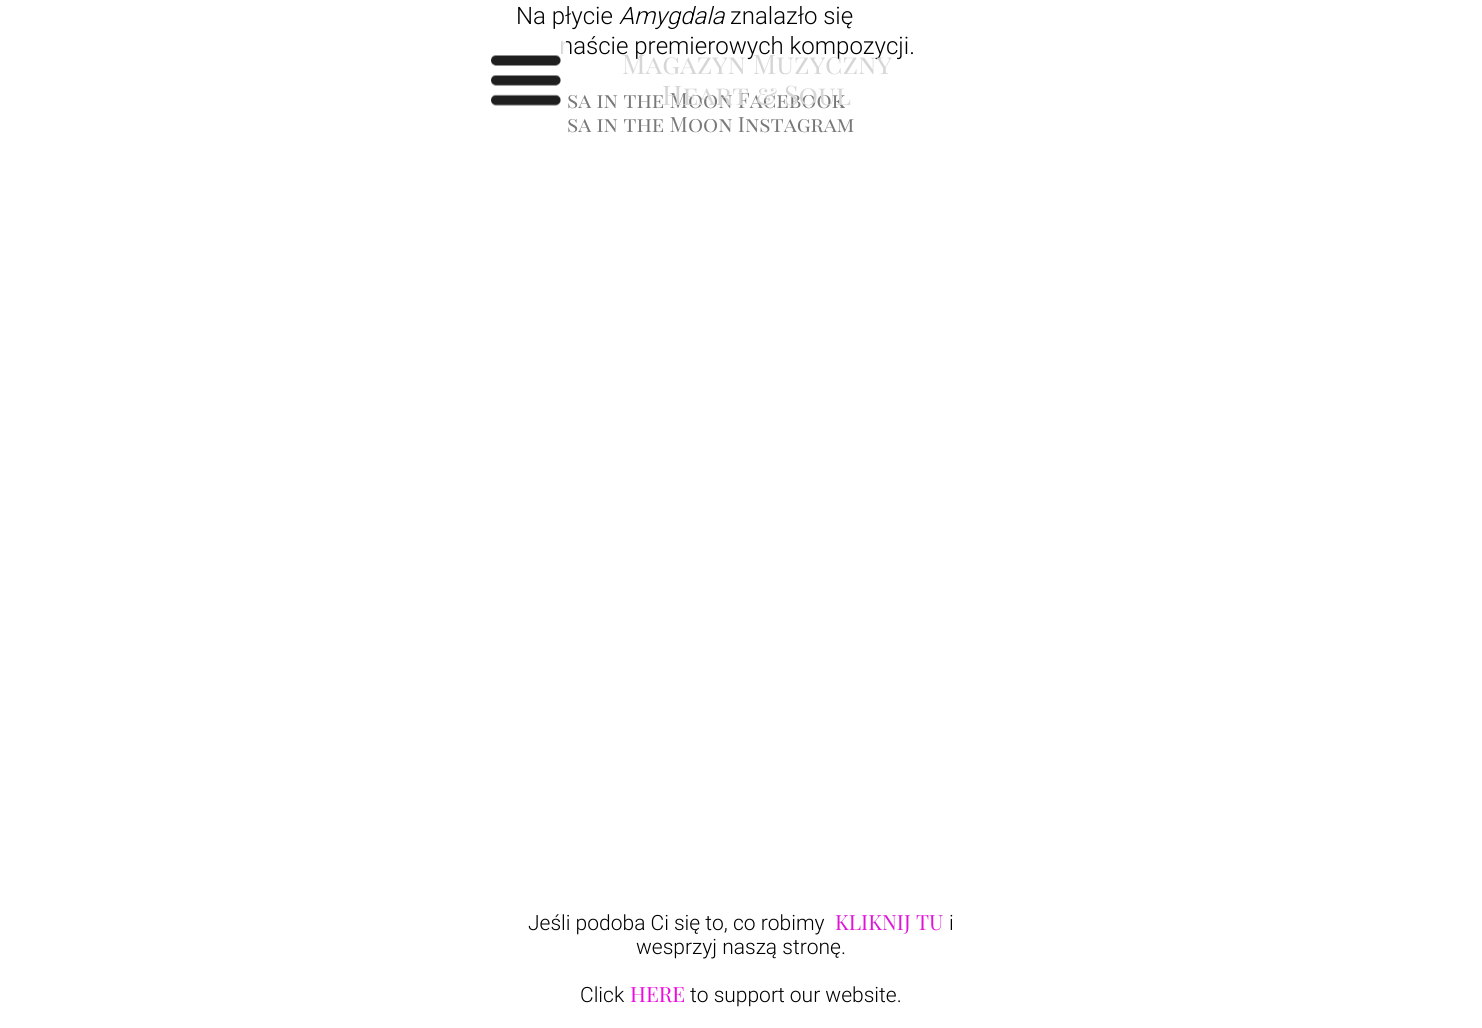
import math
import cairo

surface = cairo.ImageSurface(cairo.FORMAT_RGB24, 1482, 1028)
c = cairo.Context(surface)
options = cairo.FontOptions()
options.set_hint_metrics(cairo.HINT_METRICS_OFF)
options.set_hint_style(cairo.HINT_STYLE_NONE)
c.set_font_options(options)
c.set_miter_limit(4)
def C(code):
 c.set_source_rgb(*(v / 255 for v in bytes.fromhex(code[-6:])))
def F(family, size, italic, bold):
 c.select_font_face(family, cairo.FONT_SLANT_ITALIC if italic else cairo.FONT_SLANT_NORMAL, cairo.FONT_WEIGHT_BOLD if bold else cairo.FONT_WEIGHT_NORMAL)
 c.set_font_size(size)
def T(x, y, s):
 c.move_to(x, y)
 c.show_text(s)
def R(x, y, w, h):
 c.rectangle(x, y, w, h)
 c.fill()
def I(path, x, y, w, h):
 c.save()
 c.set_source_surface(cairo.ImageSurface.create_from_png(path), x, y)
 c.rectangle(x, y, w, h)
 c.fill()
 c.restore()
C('ffffff')
c.paint()
F('Roboto Light',24,0,0)
C('000000')
T(516,24,'Na płycie')
F('Roboto Light',24,1,0)
T(619,24,'Amygdala')
F('Roboto Light',24,0,0)
T(730,24,'znalazło się')
T(560,54,'naście premierowych kompozycji.')
F('Playfair Display SC',21,0,0)
C('787878')
T(567,108,'sa in the Moon Facebook')
T(567,132,'sa in the Moon Instagram')
c.set_source_rgba(1,1,1,0.88)
R(562,41,4,13)
I('1.png',491,55,70,51)
F('Playfair Display SC',27,0,0)
C('d6d6d6')
T(622,74,'Magazyn Muzyczny')
T(662,105,'Heart & Soul')
F('Roboto Light',21,0,0)
C('000000')
T(528,930,'Jeśli podoba Ci się to, co robimy')
F('Playfair Display SC',21,0,0)
C('de14d7')
T(835,930,'KLIKNIJ TU')
F('Roboto Light',21,0,0)
C('000000')
T(949,930,'i')
T(636,954,'wesprzyj naszą stronę.')
T(580,1002,'Click')
F('Playfair Display SC',21,0,0)
C('f007e0')
T(630,1002,'HERE')
F('Roboto Light',21,0,0)
C('000000')
T(690,1002,'to support our website.')
surface.write_to_png('o.png')
